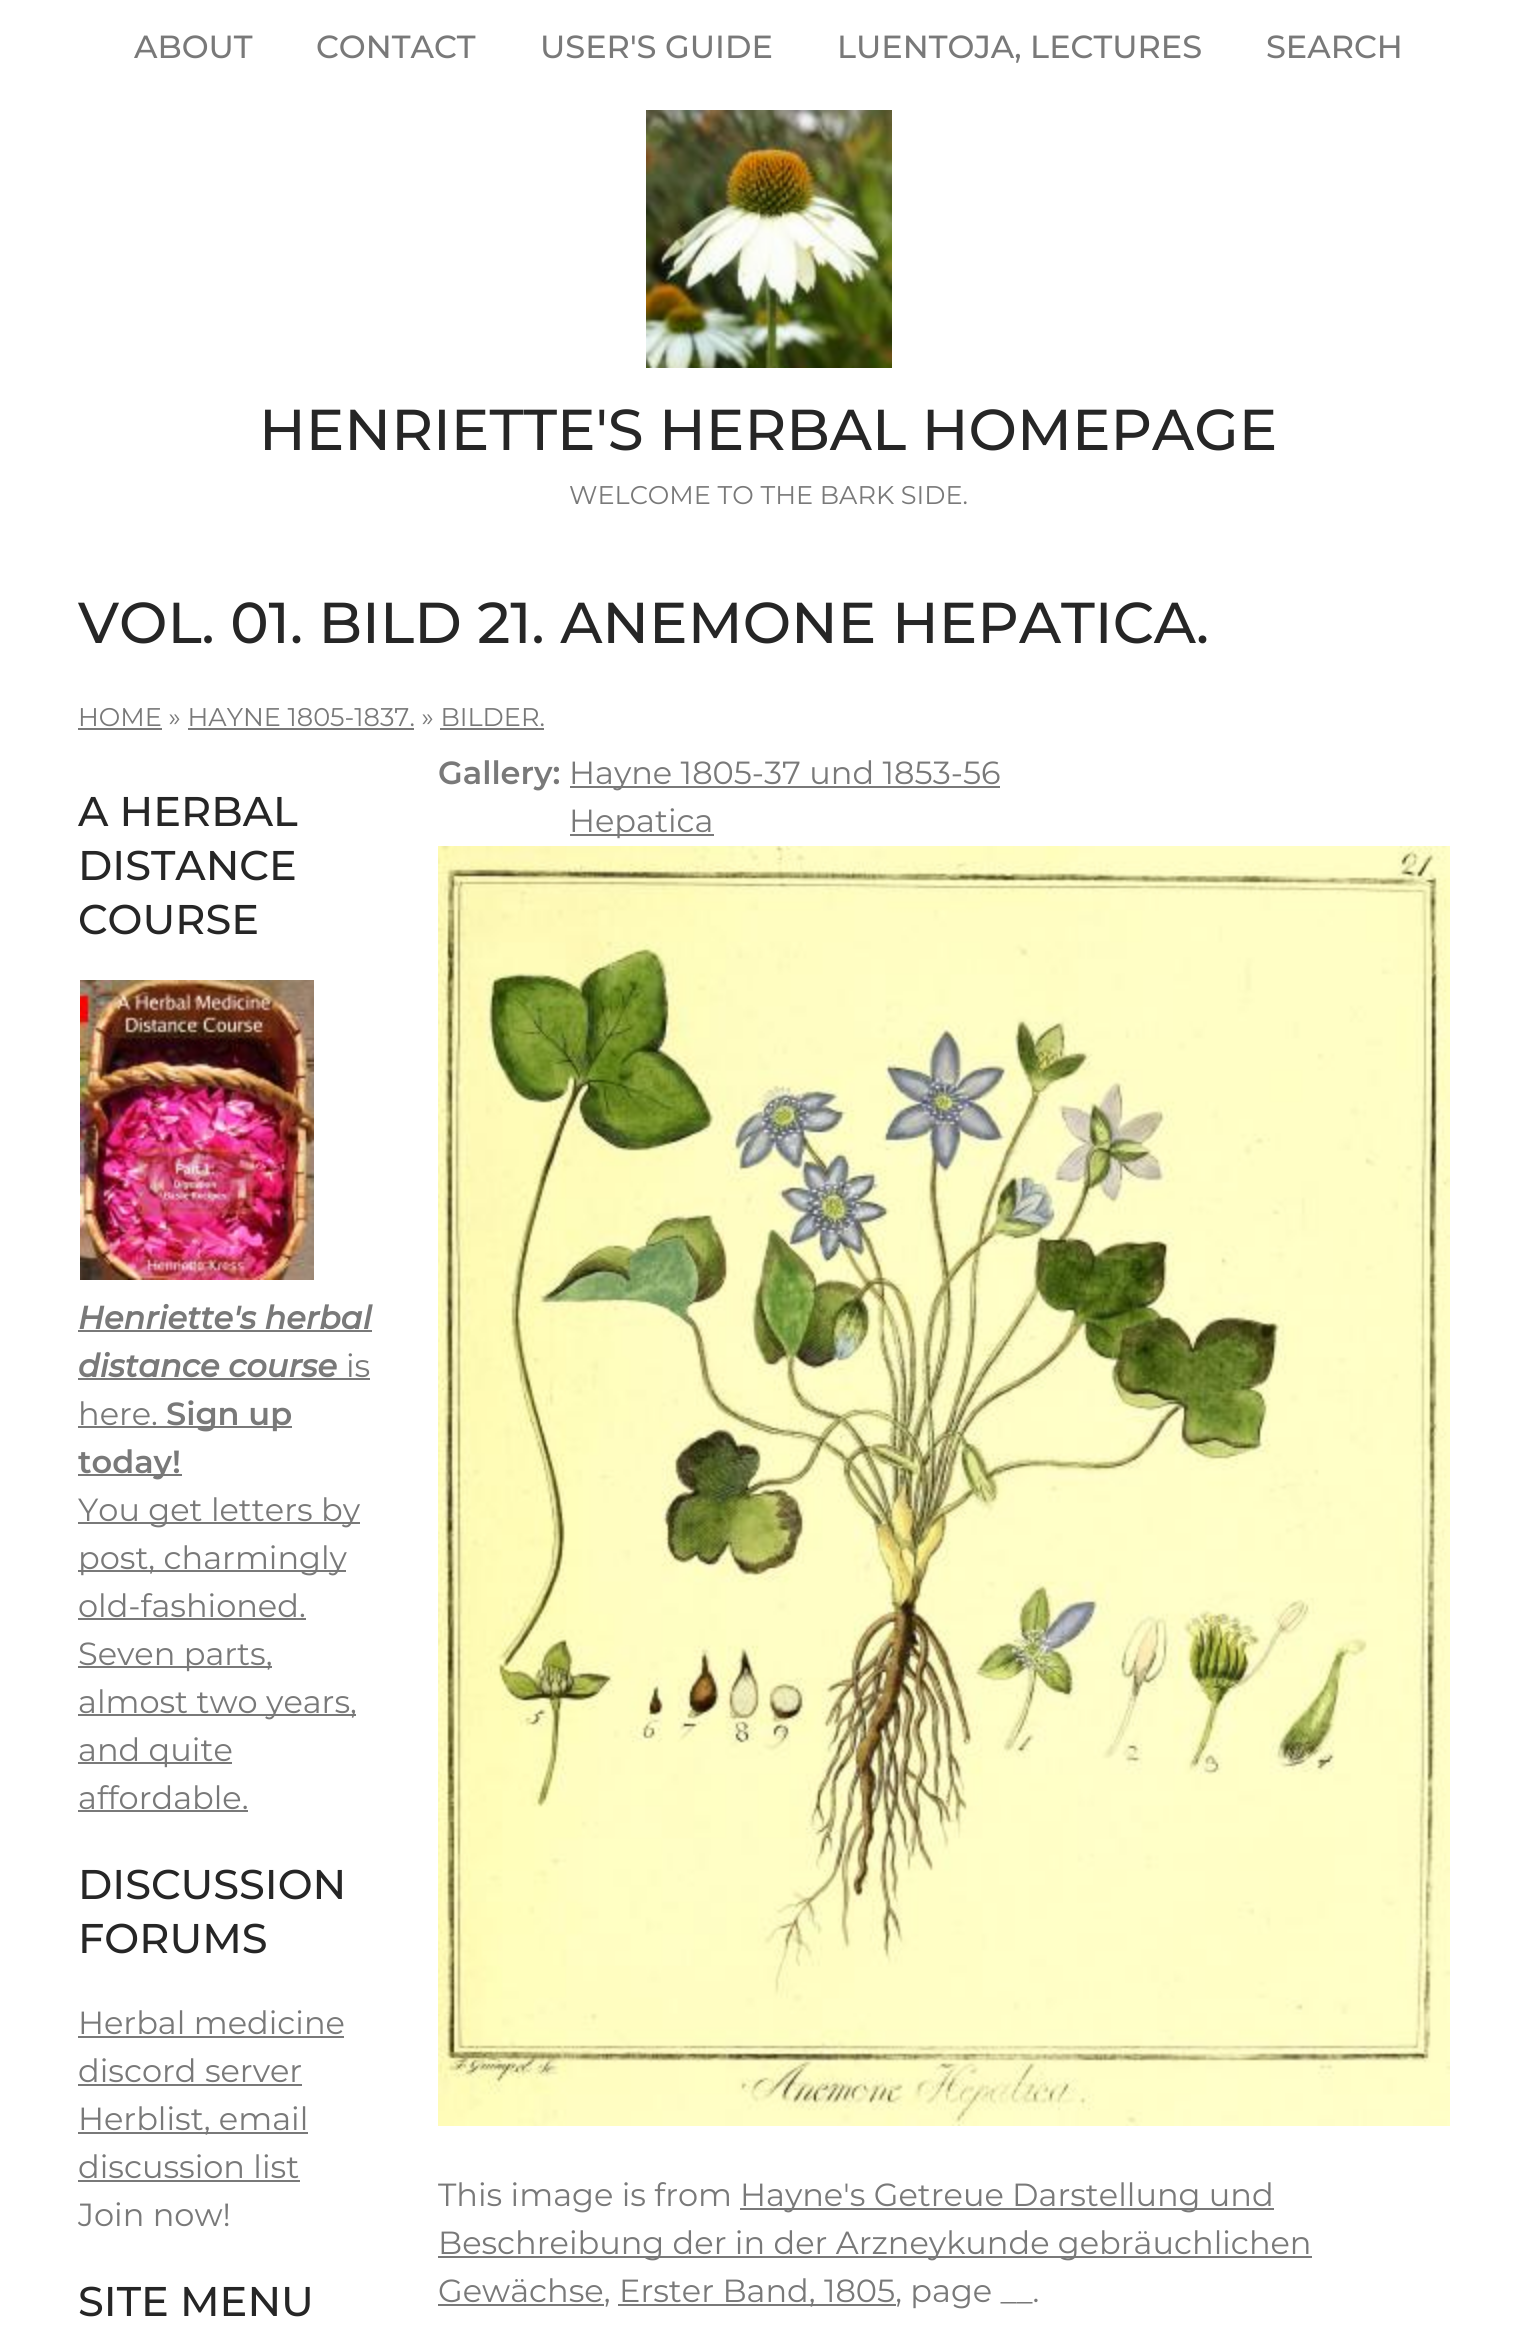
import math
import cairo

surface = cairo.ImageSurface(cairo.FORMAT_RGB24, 1535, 2326)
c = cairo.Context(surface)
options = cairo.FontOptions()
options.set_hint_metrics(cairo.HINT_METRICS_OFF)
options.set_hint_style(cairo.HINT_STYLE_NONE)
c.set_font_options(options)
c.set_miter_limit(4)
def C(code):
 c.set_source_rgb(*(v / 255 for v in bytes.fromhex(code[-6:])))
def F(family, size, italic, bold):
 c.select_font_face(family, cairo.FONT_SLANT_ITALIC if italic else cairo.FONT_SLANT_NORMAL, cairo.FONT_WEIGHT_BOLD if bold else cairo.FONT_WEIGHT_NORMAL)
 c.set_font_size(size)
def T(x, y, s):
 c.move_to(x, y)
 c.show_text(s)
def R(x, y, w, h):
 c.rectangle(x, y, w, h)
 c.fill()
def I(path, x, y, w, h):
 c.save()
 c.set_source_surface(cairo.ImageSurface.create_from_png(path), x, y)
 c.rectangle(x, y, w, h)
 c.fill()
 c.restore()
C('ffffff')
c.paint()
F('Montserrat Medium',32,0,0)
C('797979')
T(134,58,'ABOUT')
T(316,58,'CONTACT')
T(540,58,'USER\'S GUIDE')
T(837,58,'LUENTOJA, LECTURES')
T(1266,58,'SEARCH')
I('1.png',646,110,246,258)
F('Montserrat Medium',57.6,0,0)
C('262626')
T(259,450,'HENRIETTE\'S HERBAL HOMEPAGE')
F('Montserrat',25.6,0,0)
C('797979')
T(569,504,'WELCOME TO THE BARK SIDE.')
F('Montserrat Medium',57.6,0,0)
C('262626')
T(78,643,'VOL. 01. BILD 21. ANEMONE HEPATICA.')
F('Montserrat',25.6,0,0)
C('797979')
T(78,726,'HOME » HAYNE 1805-1837. » BILDER.')
R(78,728,84,2)
R(188,728,226,2)
R(440,728,104,2)
F('Montserrat Medium',41.5,0,0)
C('262626')
T(78,826,'A HERBAL')
T(78,880,'DISTANCE')
T(78,934,'COURSE')
I('2.png',80,980,234,300)
F('Montserrat',32,1,1)
C('797979')
T(78,1329,'Henriette\'s herbal')
R(78,1330,294,2)
T(78,1377,'distance course')
F('Montserrat',32,0,0)
T(346,1377,'is')
R(78,1378,292,2)
T(78,1425,'here.')
R(78,1426,214,2)
F('Montserrat SemiBold',32,0,0)
T(166,1425,'Sign up')
R(78,1474,104,2)
T(78,1473,'today!')
R(78,1522,282,2)
F('Montserrat',32,0,0)
T(78,1521,'You get letters by')
R(78,1570,268,2)
T(78,1569,'post, charmingly')
T(78,1617,'old-fashioned.')
R(78,1618,228,2)
R(78,1666,194,2)
T(78,1665,'Seven parts,')
R(78,1714,278,2)
T(78,1713,'almost two years,')
R(78,1762,154,2)
T(78,1761,'and quite')
T(78,1809,'affordable.')
R(78,1810,170,2)
F('Montserrat Medium',41.5,0,0)
C('262626')
T(78,1899,'DISCUSSION')
T(78,1953,'FORUMS')
F('Montserrat',32,0,0)
C('797979')
T(78,2034,'Herbal medicine')
R(78,2036,266,2)
T(78,2082,'discord server')
R(78,2084,224,2)
R(78,2132,230,2)
T(78,2130,'Herblist, email')
T(78,2178,'discussion list')
R(78,2180,222,2)
T(78,2226,'Join now!')
F('Montserrat Medium',41.5,0,0)
C('262626')
T(78,2316,'SITE MENU')
F('Montserrat SemiBold',32,0,0)
C('797979')
T(438,784,'Gallery:')
R(570,786,430,2)
F('Montserrat',32,0,0)
T(569,784,'Hayne 1805-37 und 1853-56')
R(570,834,144,2)
T(569,832,'Hepatica')
I('3.png',438,846,1012,1280)
T(438,2206,'This image is from')
R(740,2208,534,2)
T(740,2206,'Hayne\'s Getreue Darstellung und')
R(438,2256,874,2)
T(438,2254,'Beschreibung der in der Arzneykunde gebräuchlichen')
R(438,2304,166,2)
T(438,2302,'Gewächse,')
R(618,2304,278,2)
T(619,2302,'Erster Band, 1805, page __.')
surface.write_to_png('o.png')
